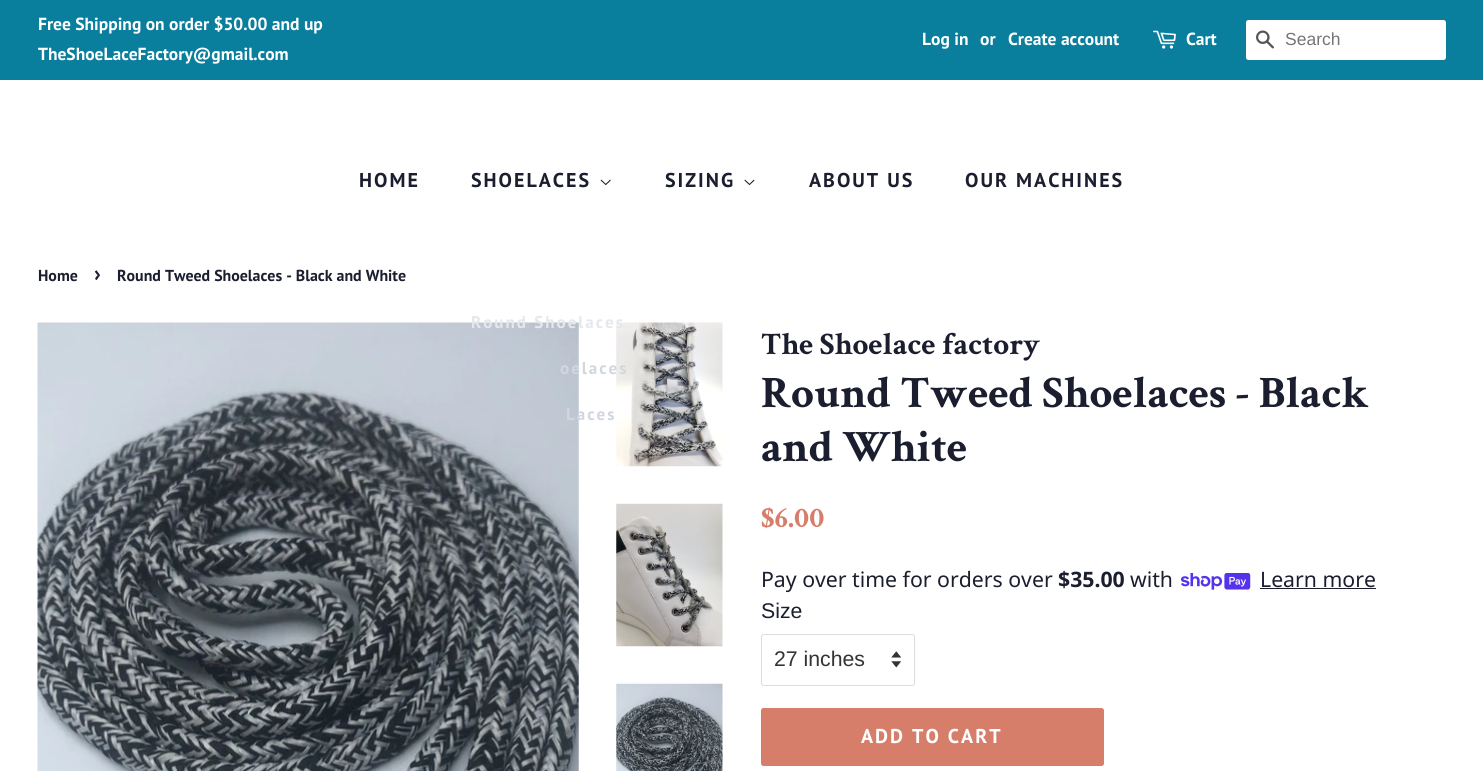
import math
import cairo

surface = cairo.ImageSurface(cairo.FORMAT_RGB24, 1483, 771)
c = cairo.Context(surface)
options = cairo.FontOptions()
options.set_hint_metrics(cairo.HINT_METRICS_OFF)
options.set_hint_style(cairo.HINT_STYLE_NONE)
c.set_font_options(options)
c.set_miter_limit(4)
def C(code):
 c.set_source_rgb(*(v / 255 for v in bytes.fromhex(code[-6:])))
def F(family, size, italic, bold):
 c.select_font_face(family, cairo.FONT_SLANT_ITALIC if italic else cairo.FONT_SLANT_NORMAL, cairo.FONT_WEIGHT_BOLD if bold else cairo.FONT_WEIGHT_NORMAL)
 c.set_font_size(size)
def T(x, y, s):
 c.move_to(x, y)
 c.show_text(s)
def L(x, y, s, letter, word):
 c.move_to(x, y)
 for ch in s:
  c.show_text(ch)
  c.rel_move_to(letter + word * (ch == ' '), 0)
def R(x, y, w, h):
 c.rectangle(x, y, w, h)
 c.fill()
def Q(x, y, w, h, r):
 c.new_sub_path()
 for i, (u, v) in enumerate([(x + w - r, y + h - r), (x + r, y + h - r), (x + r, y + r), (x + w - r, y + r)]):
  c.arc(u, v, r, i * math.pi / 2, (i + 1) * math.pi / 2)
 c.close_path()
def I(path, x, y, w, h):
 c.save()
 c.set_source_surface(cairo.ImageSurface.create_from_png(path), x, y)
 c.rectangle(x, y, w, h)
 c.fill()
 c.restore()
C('ffffff')
c.paint()
C('0a7f9d')
R(0,0,1483,80)
F('PT Sans',17.5,0,1)
C('ffffff')
T(38,30,'Free Shipping on order $50.00 and up')
c.save()
c.rectangle(38,10,470,60)
c.clip()
T(38,60,'TheShoeLaceFactory@gmail.com')
c.restore()
T(922,45,'Log in')
T(980,45,'or')
T(1008,45,'Create account')
I('1.png',1153,30,23,19)
T(1186,45,'Cart')
Q(1246,20,200,40,2.5)
c.fill()
I('2.png',1256,30,18,19)
F('Liberation Sans',17.5,0,0)
C('757575')
T(1285,45,'Search')
F('PT Sans',20,0,1)
C('1b1e2f')
L(359,187,'HOME',2,0)
L(471,187,'SHOELACES',2,0)
I('3.png',600,179,11,7)
I('5.png',37,322,542,449)
I('6.png',616,322,107,145)
F('PT Sans',17,0,1)
C('e5e8ec')
L(471,328,'Round Shoelaces',2,0)
C('d1d7df')
L(560,374,'oelaces',2,0)
L(566,420,'Laces',2,0)
F('PT Sans',20,0,1)
C('1b1e2f')
L(665,187,'SIZING',2,0)
I('4.png',744,179,11,7)
L(809,187,'ABOUT US',2,0)
L(965,187,'OUR MACHINES',2,0)
F('PT Sans',15.9,0,1)
T(38,281,'Home')
F('PT Sans',22,0,1)
T(94,281,'›')
F('PT Sans',15.9,0,1)
T(117,281,'Round Tweed Shoelaces - Black and White')
I('7.png',616,503,107,144)
I('8.png',616,683,107,88)
F('Crimson Text',31.25,0,1)
T(761,354,'The Shoelace factory')
F('Crimson Text',45,0,1)
T(761,407,'Round Tweed Shoelaces - Black')
T(761,461,'and White')
F('Crimson Text',30,0,1)
C('d77e6a')
T(761,527,'$6.00')
F('Noto Sans',21.25,0,0)
C('1b1e2f')
T(761,587,'Pay over time for orders over')
F('Noto Sans',21.25,0,1)
T(1058,587,'$35.00')
F('Noto Sans',21.25,0,0)
T(1130,587,'with')
I('9.png',1181,573,70,17)
T(1260,587,'Learn more')
R(1260,588,116,1)
F('Liberation Sans',21.25,0,0)
T(761,618,'Size')
I('10.png',891,651,10,17)
Q(761.5,634.5,153,51,2)
C('dddde0')
c.set_line_width(1)
c.stroke()
C('333333')
T(774,666,'27 inches')
C('d77e6a')
Q(761,708,343,58,2.5)
c.fill()
F('PT Sans',20,0,1)
C('ffffff')
L(861,743,'ADD TO CART',2,0)
surface.write_to_png('o.png')
